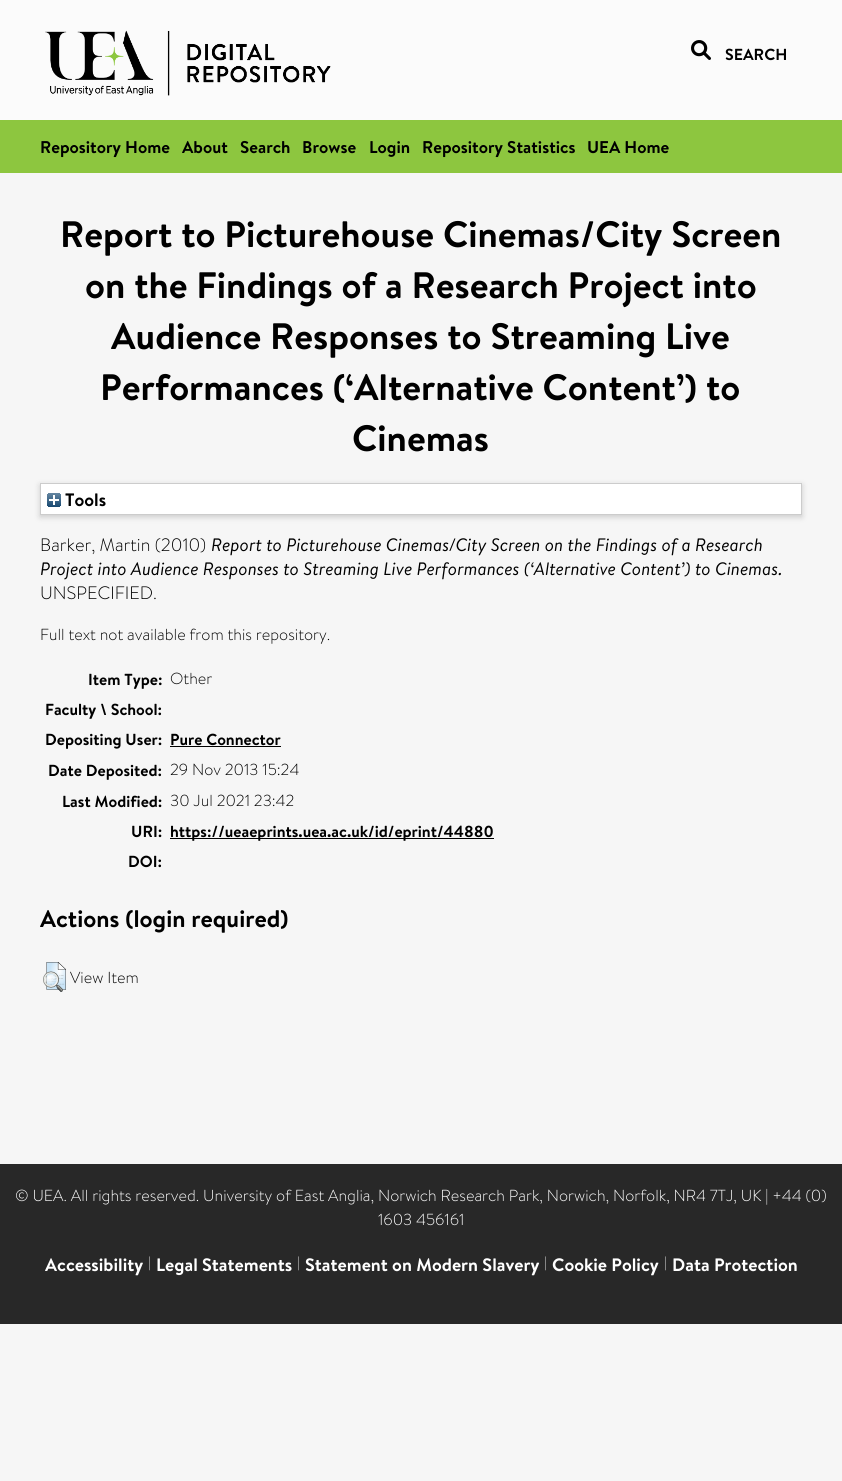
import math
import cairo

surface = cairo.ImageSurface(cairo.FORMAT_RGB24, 842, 1481)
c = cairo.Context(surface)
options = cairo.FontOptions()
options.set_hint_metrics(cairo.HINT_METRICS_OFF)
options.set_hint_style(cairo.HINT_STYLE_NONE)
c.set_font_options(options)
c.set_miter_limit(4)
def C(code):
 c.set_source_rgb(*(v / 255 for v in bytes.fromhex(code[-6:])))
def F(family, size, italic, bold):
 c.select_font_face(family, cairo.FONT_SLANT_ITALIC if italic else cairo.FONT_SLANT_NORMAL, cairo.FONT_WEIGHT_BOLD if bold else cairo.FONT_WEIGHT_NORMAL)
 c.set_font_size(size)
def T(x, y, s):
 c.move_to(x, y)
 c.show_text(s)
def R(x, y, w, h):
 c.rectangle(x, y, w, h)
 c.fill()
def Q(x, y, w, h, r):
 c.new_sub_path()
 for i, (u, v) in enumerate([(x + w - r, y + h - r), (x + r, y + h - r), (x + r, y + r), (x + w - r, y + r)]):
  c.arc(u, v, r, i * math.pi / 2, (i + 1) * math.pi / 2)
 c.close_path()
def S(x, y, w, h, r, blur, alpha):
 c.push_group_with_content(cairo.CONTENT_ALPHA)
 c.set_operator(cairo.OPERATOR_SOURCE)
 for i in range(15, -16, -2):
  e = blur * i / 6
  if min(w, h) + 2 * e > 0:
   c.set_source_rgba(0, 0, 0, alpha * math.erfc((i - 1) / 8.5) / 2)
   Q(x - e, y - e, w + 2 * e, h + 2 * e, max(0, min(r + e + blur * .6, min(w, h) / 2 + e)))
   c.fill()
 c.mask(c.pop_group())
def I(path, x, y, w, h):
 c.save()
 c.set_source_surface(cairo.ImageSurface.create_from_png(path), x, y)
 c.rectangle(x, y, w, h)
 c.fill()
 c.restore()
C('f6f6f6')
c.paint()
C('fbfbfb')
R(0,0,842,120)
I('1.png',45,30,286,66)
I('2.png',691,40,20,20)
F('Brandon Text',16,0,1)
C('000000')
T(725,60,'SEARCH')
C('8dc63f')
R(0,120,842,53)
F('Brandon Text',17,0,1)
C('000000')
T(40,153,'Repository Home')
T(182,153,'About')
T(240,153,'Search')
T(302,153,'Browse')
T(369,153,'Login')
T(422,153,'Repository Statistics')
T(587,153,'UEA Home')
F('Brandon Text',36.75,0,1)
T(60,247,'Report to Picturehouse Cinemas/City Screen')
T(85,298,'on the Findings of a Research Project into')
T(111,349,'Audience Responses to Streaming Live')
T(100,400,'Performances (‘Alternative Content’) to')
T(352,451,'Cinemas')
C('646464')
S(40,485,762,32,0,3,.3)
C('ffffff')
c.rectangle(40.5,483.5,761,31)
c.fill_preserve()
C('cccccc')
c.set_line_width(1)
c.stroke()
I('3.png',47,493,14,14)
F('Brandon Text',18,0,1)
C('000000')
T(65,506,'Tools')
F('Brandon Text Light',18,0,0)
T(40,551,'Barker, Martin (2010)')
F('Brandon Text',18,1,0)
T(211,551,'Report to Picturehouse Cinemas/City Screen on the Findings of a Research')
T(40,575,'Project into Audience Responses to Streaming Live Performances (‘Alternative Content’) to Cinemas.')
F('Brandon Text Light',18,0,0)
T(40,599,'UNSPECIFIED.')
F('Brandon Text Light',16,0,0)
T(40,640,'Full text not available from this repository.')
F('Brandon Text',16,0,1)
T(88,685,'Item Type:')
F('Brandon Text Light',16,0,0)
T(170,684,'Other')
F('Brandon Text',16,0,1)
T(45,715,'Faculty \\ School:')
T(45,745,'Depositing User:')
T(170,745,'Pure Connector')
R(170,746,111,1)
T(48,776,'Date Deposited:')
F('Brandon Text Light',16,0,0)
T(170,775,'29 Nov 2013 15:24')
F('Brandon Text',16,0,1)
T(62,807,'Last Modified:')
F('Brandon Text Light',16,0,0)
T(170,806,'30 Jul 2021 23:42')
F('Brandon Text',16,0,1)
T(131,837,'URI:')
R(170,838,324,1)
T(170,837,'https://ueaeprints.uea.ac.uk/id/eprint/44880')
T(128,867,'DOI:')
F('Brandon Text',24,0,1)
T(40,927,'Actions (login required)')
I('4.png',43,962,23,30)
F('Brandon Text Light',16,0,0)
T(70,983,'View Item')
C('282828')
R(0,1164,842,160)
C('ffffff')
T(15,1201,'© UEA. All rights reserved. University of East Anglia, Norwich Research Park, Norwich, Norfolk, NR4 7TJ, UK | +44 (0)')
T(378,1225,'1603 456161')
F('Brandon Text',18,0,1)
T(45,1271,'Accessibility')
F('Brandon Text Light',14,0,0)
T(148,1267,'|')
F('Brandon Text',18,0,1)
T(156,1271,'Legal Statements')
F('Brandon Text Light',14,0,0)
T(297,1267,'|')
F('Brandon Text',18,0,1)
T(305,1271,'Statement on Modern Slavery')
F('Brandon Text Light',14,0,0)
T(544,1267,'|')
F('Brandon Text',18,0,1)
T(552,1271,'Cookie Policy')
F('Brandon Text Light',14,0,0)
T(664,1267,'|')
F('Brandon Text',18,0,1)
T(672,1271,'Data Protection')
surface.write_to_png('o.png')
